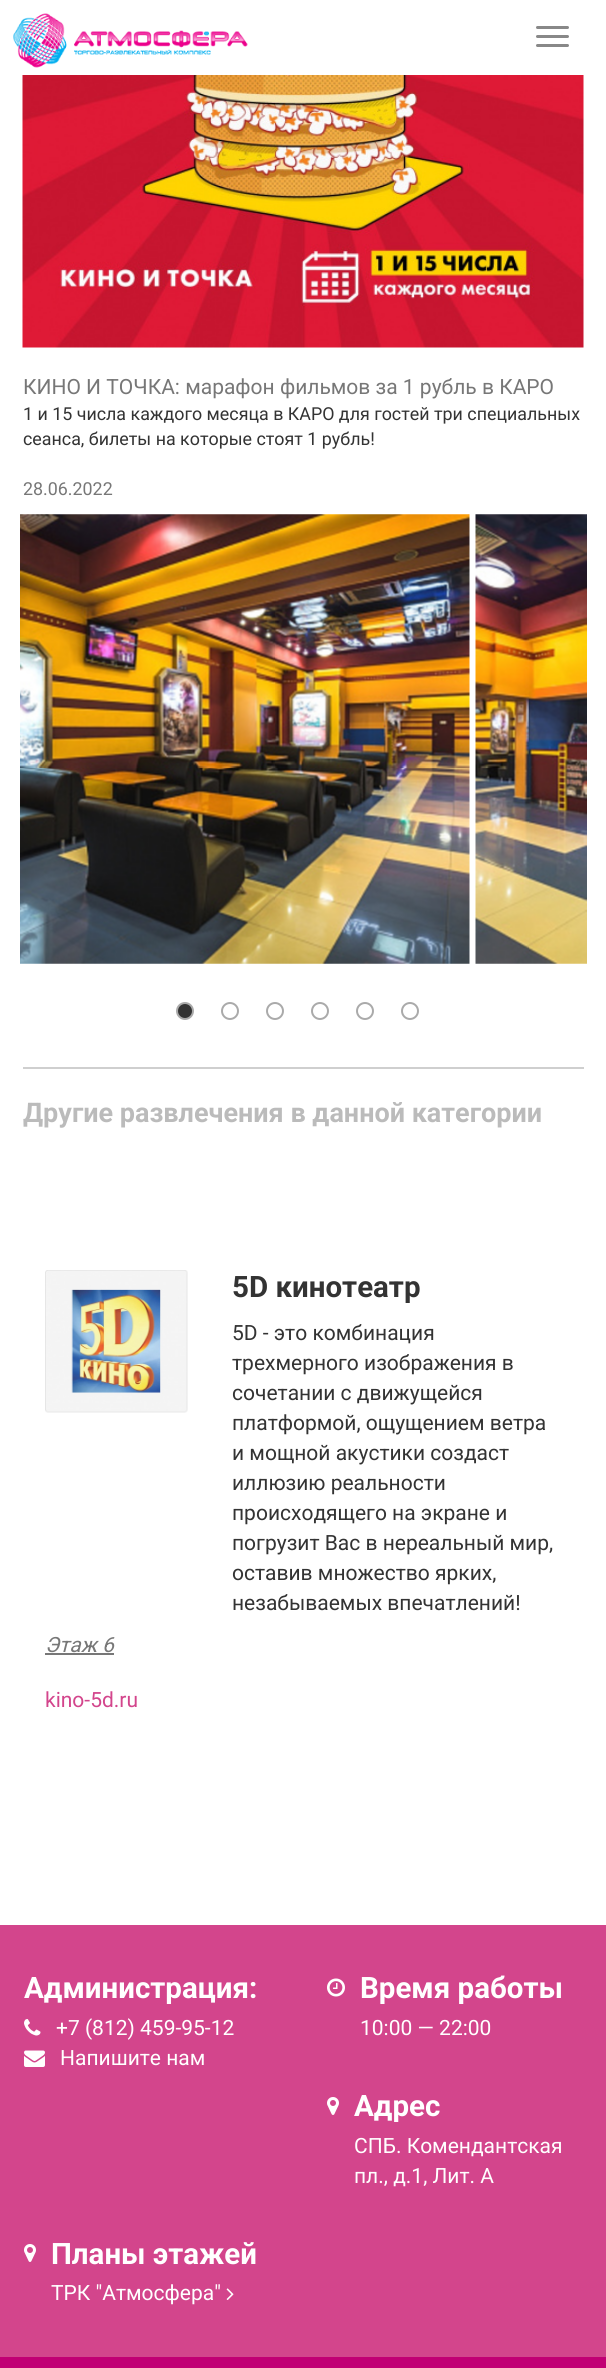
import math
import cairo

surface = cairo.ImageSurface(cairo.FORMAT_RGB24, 606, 2368)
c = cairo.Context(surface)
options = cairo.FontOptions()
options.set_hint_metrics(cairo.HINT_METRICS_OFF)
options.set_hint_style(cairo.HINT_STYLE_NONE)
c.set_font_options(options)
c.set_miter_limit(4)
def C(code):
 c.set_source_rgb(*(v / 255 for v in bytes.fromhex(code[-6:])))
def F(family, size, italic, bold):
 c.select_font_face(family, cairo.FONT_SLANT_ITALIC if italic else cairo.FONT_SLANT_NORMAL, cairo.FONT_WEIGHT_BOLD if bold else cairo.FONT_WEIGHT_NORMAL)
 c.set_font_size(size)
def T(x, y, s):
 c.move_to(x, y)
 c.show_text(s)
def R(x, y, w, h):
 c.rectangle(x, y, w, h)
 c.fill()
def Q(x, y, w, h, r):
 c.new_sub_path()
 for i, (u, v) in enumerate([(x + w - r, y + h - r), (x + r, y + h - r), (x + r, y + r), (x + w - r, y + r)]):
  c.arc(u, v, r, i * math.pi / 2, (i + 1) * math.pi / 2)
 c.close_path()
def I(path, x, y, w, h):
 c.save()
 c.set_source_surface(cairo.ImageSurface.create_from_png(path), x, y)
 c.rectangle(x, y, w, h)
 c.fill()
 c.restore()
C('ffffff')
c.paint()
I('1.png',13,13,235,55)
C('888888')
Q(536,26,33,3,1.5)
c.fill()
Q(536,35,33,3,1.5)
c.fill()
Q(536,44,33,3,1.5)
c.fill()
I('2.png',22,75,562,273)
F('Roboto',21,0,0)
C('777777')
T(23,394,'КИНО И ТОЧКА: марафон фильмов за 1 рубль в КАРО')
F('Roboto',17.85,0,0)
C('333333')
T(23,420,'1 и 15 числа каждого месяца в КАРО для гостей три специальных')
T(23,445,'сеанса, билеты на которые стоят 1 рубль!')
C('777777')
T(23,495,'28.06.2022')
I('3.png',20,514,450,450)
I('4.png',475,514,112,450)
C('333333')
c.arc(185,1011,8,0,2 * math.pi)
c.fill_preserve()
C('aaaaaa')
c.stroke()
c.arc(230,1011,8,0,2 * math.pi)
c.stroke()
c.arc(275,1011,8,0,2 * math.pi)
c.stroke()
c.arc(320,1011,8,0,2 * math.pi)
c.stroke()
c.arc(365,1011,8,0,2 * math.pi)
c.stroke()
c.arc(410,1011,8,0,2 * math.pi)
c.stroke()
C('cfcfcf')
R(23,1067,561,2)
F('Roboto',27,0,1)
C('bbbbbb')
T(23,1122,'Другие развлечения в данной категории')
I('5.png',45,1270,143,143)
F('Roboto',29.5,0,1)
C('333333')
T(232,1297,'5D кинотеатр')
F('Roboto',21,0,0)
T(232,1340,'5D - это комбинация')
T(232,1370,'трехмерного изображения в')
T(232,1400,'сочетании с движущейся')
T(232,1430,'платформой, ощущением ветра')
T(232,1460,'и мощной акустики создаст')
T(232,1490,'иллюзию реальности')
T(232,1520,'происходящего на экране и')
T(232,1550,'погрузит Вас в нереальный мир,')
T(232,1580,'оставив множество ярких,')
T(232,1610,'незабываемых впечатлений!')
F('Roboto',21,1,0)
C('777777')
T(45,1652,'Этаж 6')
R(45,1653,69,2)
F('Roboto',21,0,0)
C('d3458c')
T(45,1707,'kino-5d.ru')
R(0,1925,606,432)
F('Roboto',29.5,0,1)
C('ffffff')
T(24,1998,'Администрация:')
I('6.png',24,2019,17,17)
F('Roboto',21,0,0)
T(56,2035,'+7 (812) 459-95-12')
I('7.png',24,2050,21,17)
T(60,2065,'Напишите нам')
I('8.png',327,1978,18,19)
F('Roboto',29.5,0,1)
T(360,1998,'Время работы')
F('Roboto',21,0,0)
T(360,2035,'10:00 — 22:00')
I('9.png',327,2097,12,18)
F('Roboto',29.5,0,1)
T(354,2116,'Адрес')
F('Roboto',21,0,0)
T(354,2153,'СПБ. Комендантская')
T(354,2183,'пл., д.1, Лит. А')
I('9.png',24,2244,12,18)
F('Roboto',29.5,0,1)
T(51,2264,'Планы этажей')
F('Roboto',21,0,0)
T(51,2300,'ТРК "Атмосфера"')
I('10.png',226,2288,8,12)
C('c10074')
R(0,2357,606,11)
surface.write_to_png('o.png')
